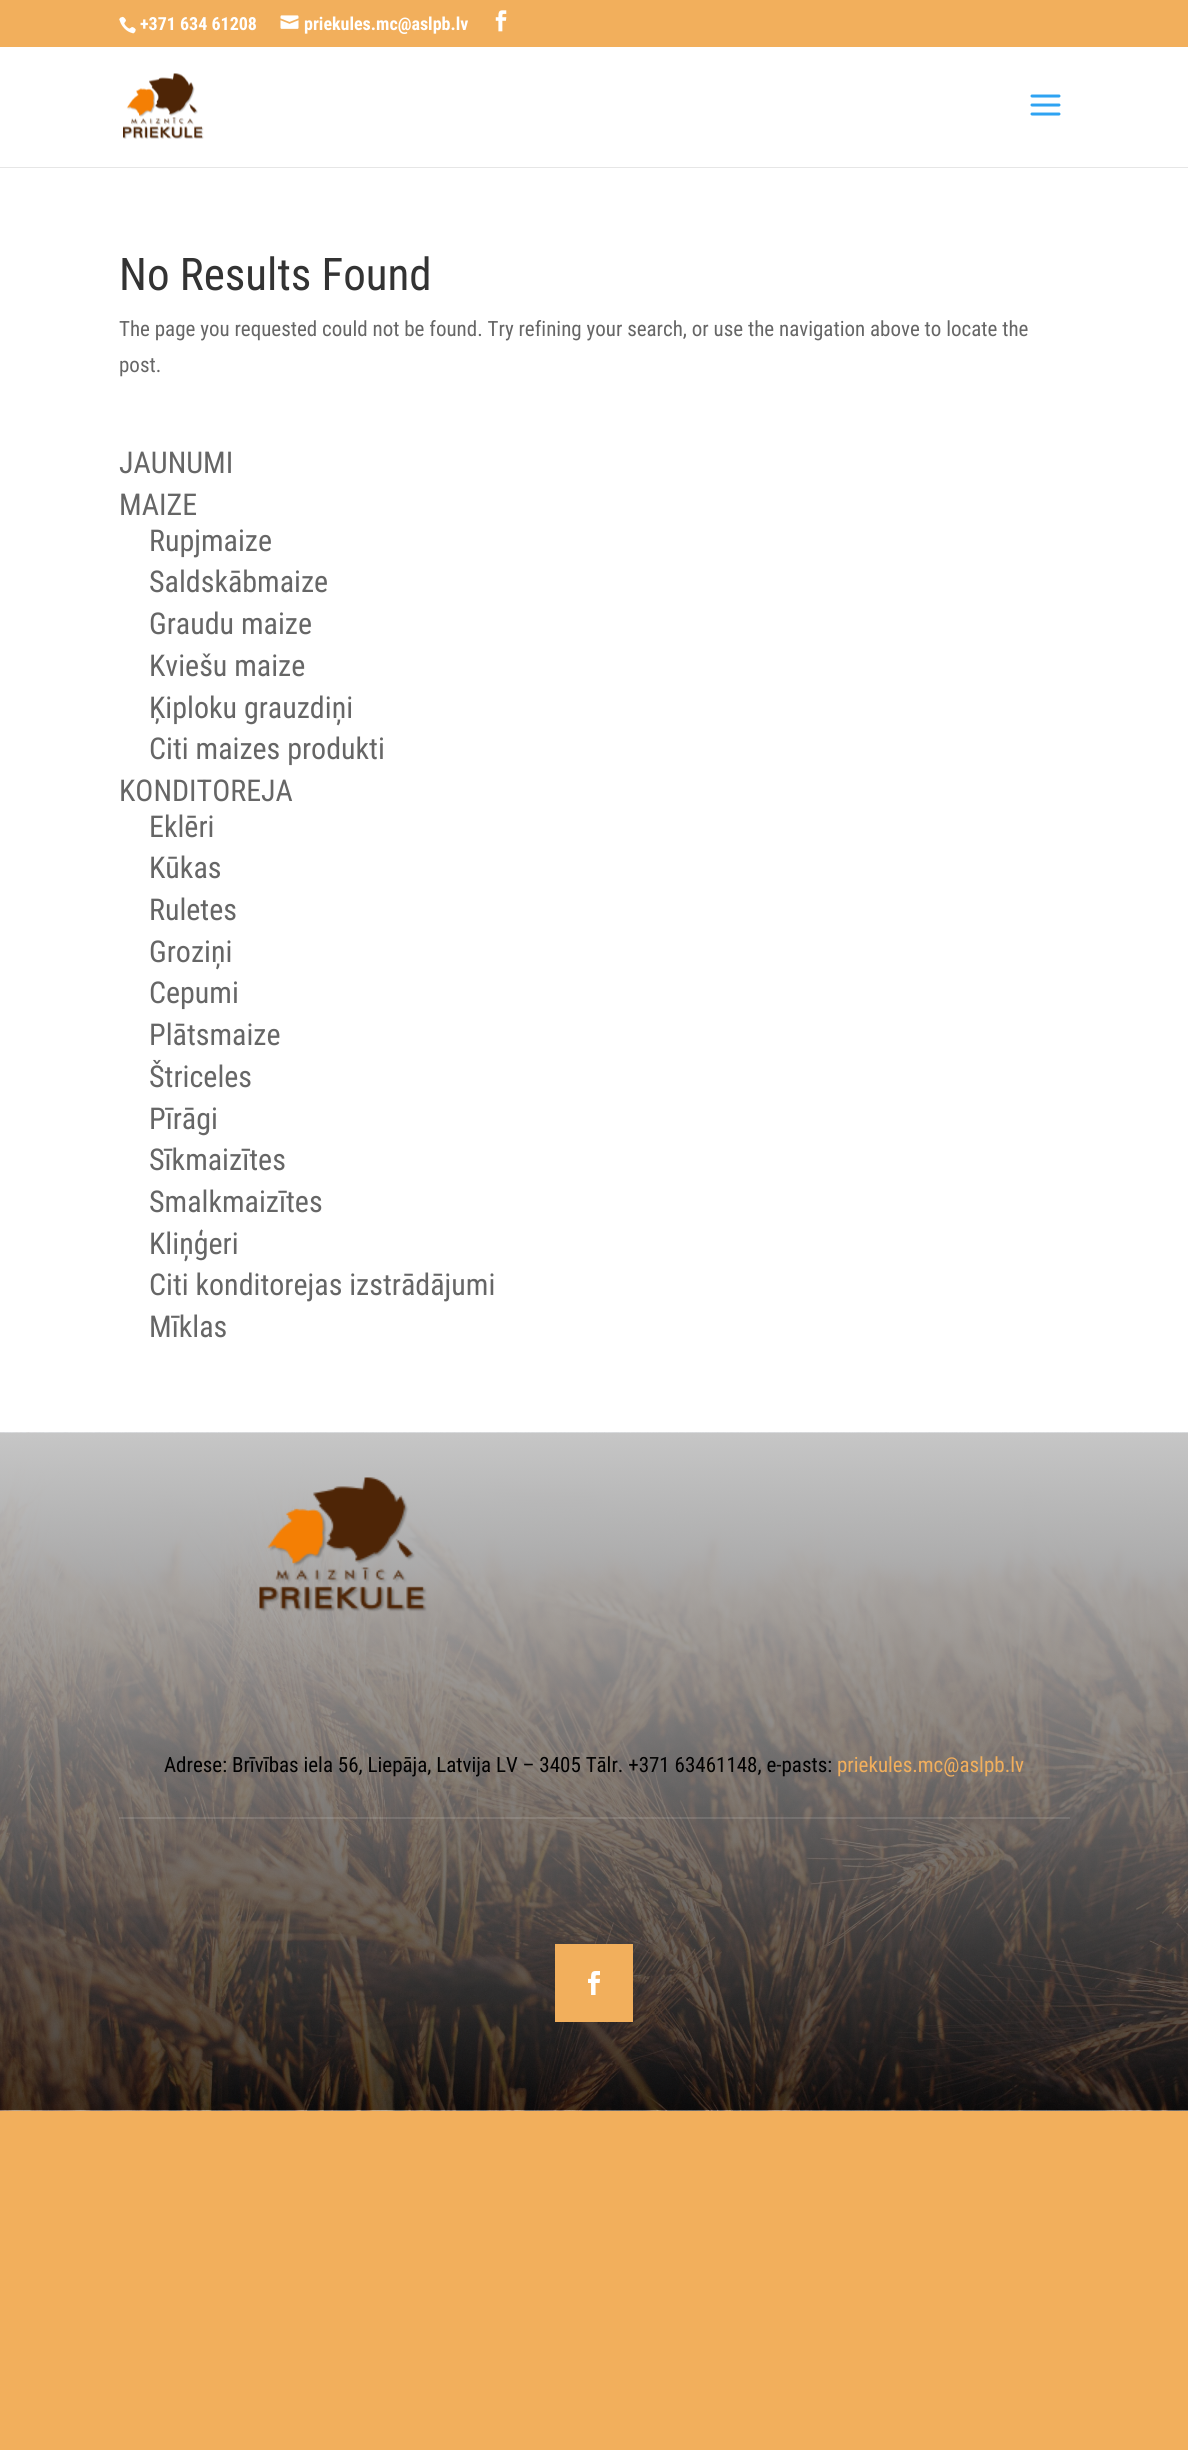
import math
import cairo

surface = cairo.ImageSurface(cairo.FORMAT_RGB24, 1188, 2450)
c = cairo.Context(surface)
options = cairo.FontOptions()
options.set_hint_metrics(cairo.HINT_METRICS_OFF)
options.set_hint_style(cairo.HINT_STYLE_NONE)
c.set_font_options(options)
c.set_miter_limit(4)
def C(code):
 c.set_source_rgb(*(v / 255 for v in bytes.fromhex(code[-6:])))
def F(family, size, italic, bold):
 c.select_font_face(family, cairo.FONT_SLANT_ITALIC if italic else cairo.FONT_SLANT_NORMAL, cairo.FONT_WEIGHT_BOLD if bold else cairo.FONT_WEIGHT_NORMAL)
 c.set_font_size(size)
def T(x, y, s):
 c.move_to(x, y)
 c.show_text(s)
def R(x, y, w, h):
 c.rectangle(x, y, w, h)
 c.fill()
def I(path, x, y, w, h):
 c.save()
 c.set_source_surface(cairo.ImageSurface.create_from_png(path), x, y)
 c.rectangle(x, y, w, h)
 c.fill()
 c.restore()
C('f2af5c')
c.paint()
I('1.png',119,16,17,18)
F('Roboto Condensed',18,0,1)
C('ffffff')
T(140,30,'+371 634 61208')
I('2.png',280,15,19,14)
T(304,30,'priekules.mc@aslpb.lv')
I('3.png',495,10,12,22)
C('e6e6e6')
R(0,167,1188,1)
C('ffffff')
R(0,47,1188,120)
I('4.png',123,73,81,66)
I('5.png',1030,94,31,22)
R(0,168,1188,1265)
F('Roboto Condensed',45,0,0)
C('333333')
T(119,290,'No Results Found')
F('Roboto Condensed',21,0,0)
C('666666')
T(119,336,'The page you requested could not be found. Try refining your search, or use the navigation above to locate the')
T(119,372,'post.')
F('Roboto Condensed',30,0,0)
T(119,473,'JAUNUMI')
T(119,515,'MAIZE')
T(149,551,'Rupjmaize')
T(149,592,'Saldskābmaize')
T(149,634,'Graudu maize')
T(149,676,'Kviešu maize')
T(149,718,'Ķiploku grauzdiņi')
T(149,759,'Citi maizes produkti')
T(119,801,'KONDITOREJA')
T(149,837,'Eklēri')
T(149,878,'Kūkas')
T(149,920,'Ruletes')
T(149,962,'Groziņi')
T(149,1003,'Cepumi')
T(149,1045,'Plātsmaize')
T(149,1087,'Štriceles')
T(149,1129,'Pīrāgi')
T(149,1170,'Sīkmaizītes')
T(149,1212,'Smalkmaizītes')
T(149,1254,'Kliņģeri')
T(149,1295,'Citi konditorejas izstrādājumi')
T(149,1337,'Mīklas')
C('ffffff')
R(0,2110,1188,1)
I('6.png',0,1432,1188,679)
I('7.png',259,1477,168,135)
F('Roboto Condensed',21,0,0)
C('000000')
T(164,1772,'Adrese: Brīvības iela 56, Liepāja, Latvija LV – 3405 Tālr. +371 63461148, e-pasts:')
C('f2af5c')
T(837,1772,'priekules.mc@aslpb.lv')
c.set_source_rgba(1,1,1,0.12)
R(119,1817,951,2)
C('f2af5c')
R(555,1944,78,78)
I('8.png',588,1971,12,24)
surface.write_to_png('o.png')
